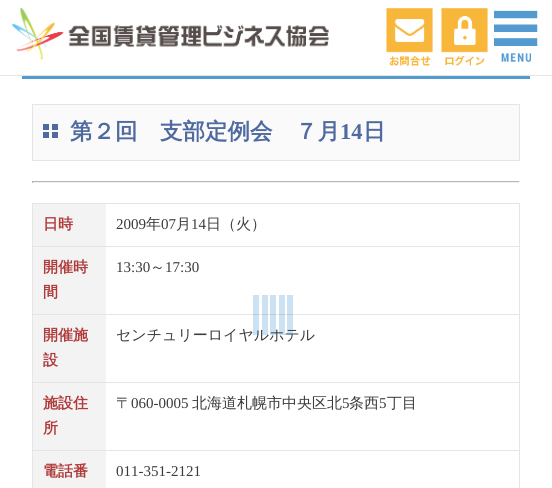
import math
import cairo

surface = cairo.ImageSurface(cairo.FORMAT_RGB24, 552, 488)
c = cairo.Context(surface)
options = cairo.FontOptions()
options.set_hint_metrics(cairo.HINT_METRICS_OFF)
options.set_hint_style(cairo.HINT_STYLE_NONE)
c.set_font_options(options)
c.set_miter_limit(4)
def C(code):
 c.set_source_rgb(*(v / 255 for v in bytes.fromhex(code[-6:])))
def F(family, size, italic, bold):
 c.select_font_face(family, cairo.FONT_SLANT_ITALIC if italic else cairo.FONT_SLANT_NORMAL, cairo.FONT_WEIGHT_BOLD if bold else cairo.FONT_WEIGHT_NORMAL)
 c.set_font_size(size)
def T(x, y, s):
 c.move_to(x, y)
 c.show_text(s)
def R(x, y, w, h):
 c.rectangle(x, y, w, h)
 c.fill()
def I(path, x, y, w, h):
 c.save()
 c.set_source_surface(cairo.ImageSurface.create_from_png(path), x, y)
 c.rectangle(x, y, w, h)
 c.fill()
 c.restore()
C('ffffff')
c.paint()
C('e6e6e6')
R(0,75,552,1)
I('1.png',12,8,317,52)
I('2.png',386,8,47,59)
I('3.png',441,8,47,58)
I('4.png',494,10,44,53)
C('539acf')
R(22,76,508,3)
C('fafafa')
c.rectangle(32.5,104.5,487,56)
c.fill_preserve()
C('e5e5e5')
c.set_line_width(1)
c.stroke()
I('5.png',43,124,15,14)
F('WenQuanYi Zen Hei',22.5,0,1)
C('4f6aa0')
T(70,139,'第２回　支部定例会　７月')
F('Liberation Serif',22.5,0,1)
T(340,139,'14')
F('WenQuanYi Zen Hei',22.5,0,1)
T(363,139,'日')
C('b5b5b5')
R(32,181,488,1)
C('f2f2f2')
R(519,181,1,2)
R(32,182,488,1)
C('b5b5b5')
R(32,181,1,2)
C('f3f3f3')
R(33,204,73,42)
C('e5e5e5')
R(32,203,488,1)
R(32,246,488,1)
R(32,314,488,1)
R(32,382,488,1)
R(32,450,488,1)
R(32,450,1,38)
R(32,382,1,69)
R(32,314,1,69)
R(32,246,1,69)
R(32,203,1,44)
F('WenQuanYi Zen Hei',15,0,1)
C('b03b3b')
T(43,229,'日時')
C('e5e5e5')
R(519,450,1,38)
R(519,382,1,69)
R(519,314,1,69)
R(519,246,1,69)
R(519,203,1,44)
F('Liberation Serif',15,0,0)
C('3b3b3b')
T(116,229,'2009')
F('WenQuanYi Zen Hei Medium',15,0,0)
T(146,229,'年')
F('Liberation Serif',15,0,0)
T(161,229,'07')
F('WenQuanYi Zen Hei Medium',15,0,0)
T(176,229,'月')
F('Liberation Serif',15,0,0)
T(191,229,'14')
F('WenQuanYi Zen Hei Medium',15,0,0)
T(206,229,'日（火）')
C('f3f3f3')
R(33,247,73,67)
F('WenQuanYi Zen Hei',15,0,1)
C('b03b3b')
T(43,272,'開催時')
T(43,297,'間')
F('Liberation Serif',15,0,0)
C('3b3b3b')
T(116,272,'13:30')
F('WenQuanYi Zen Hei Medium',15,0,0)
T(150,272,'～')
F('Liberation Serif',15,0,0)
T(165,272,'17:30')
C('f3f3f3')
R(33,315,73,67)
F('WenQuanYi Zen Hei',15,0,1)
C('b03b3b')
T(43,340,'開催施')
T(43,365,'設')
F('WenQuanYi Zen Hei Medium',15,0,0)
C('3b3b3b')
T(116,340,'センチュリーロイヤルホテル')
C('f3f3f3')
R(33,383,73,67)
F('WenQuanYi Zen Hei',15,0,1)
C('b03b3b')
T(43,408,'施設住')
T(43,433,'所')
F('WenQuanYi Zen Hei Medium',15,0,0)
C('3b3b3b')
T(116,408,'〒')
F('Liberation Serif',15,0,0)
T(131,408,'060-0005')
F('WenQuanYi Zen Hei Medium',15,0,0)
T(192,408,'北海道札幌市中央区北')
F('Liberation Serif',15,0,0)
T(342,408,'5')
F('WenQuanYi Zen Hei Medium',15,0,0)
T(349,408,'条西')
F('Liberation Serif',15,0,0)
T(379,408,'5')
F('WenQuanYi Zen Hei Medium',15,0,0)
T(387,408,'丁目')
C('f3f3f3')
R(33,451,73,37)
F('WenQuanYi Zen Hei',15,0,1)
C('b03b3b')
T(43,476,'電話番')
F('Liberation Serif',15,0,0)
C('3b3b3b')
T(116,476,'011-351-2121')
c.set_source_rgba(0.122,0.486,0.757,0.23)
R(253,295,6,40)
R(262,295,6,40)
R(270,295,6,40)
R(279,295,6,40)
R(287,295,6,40)
surface.write_to_png('o.png')
